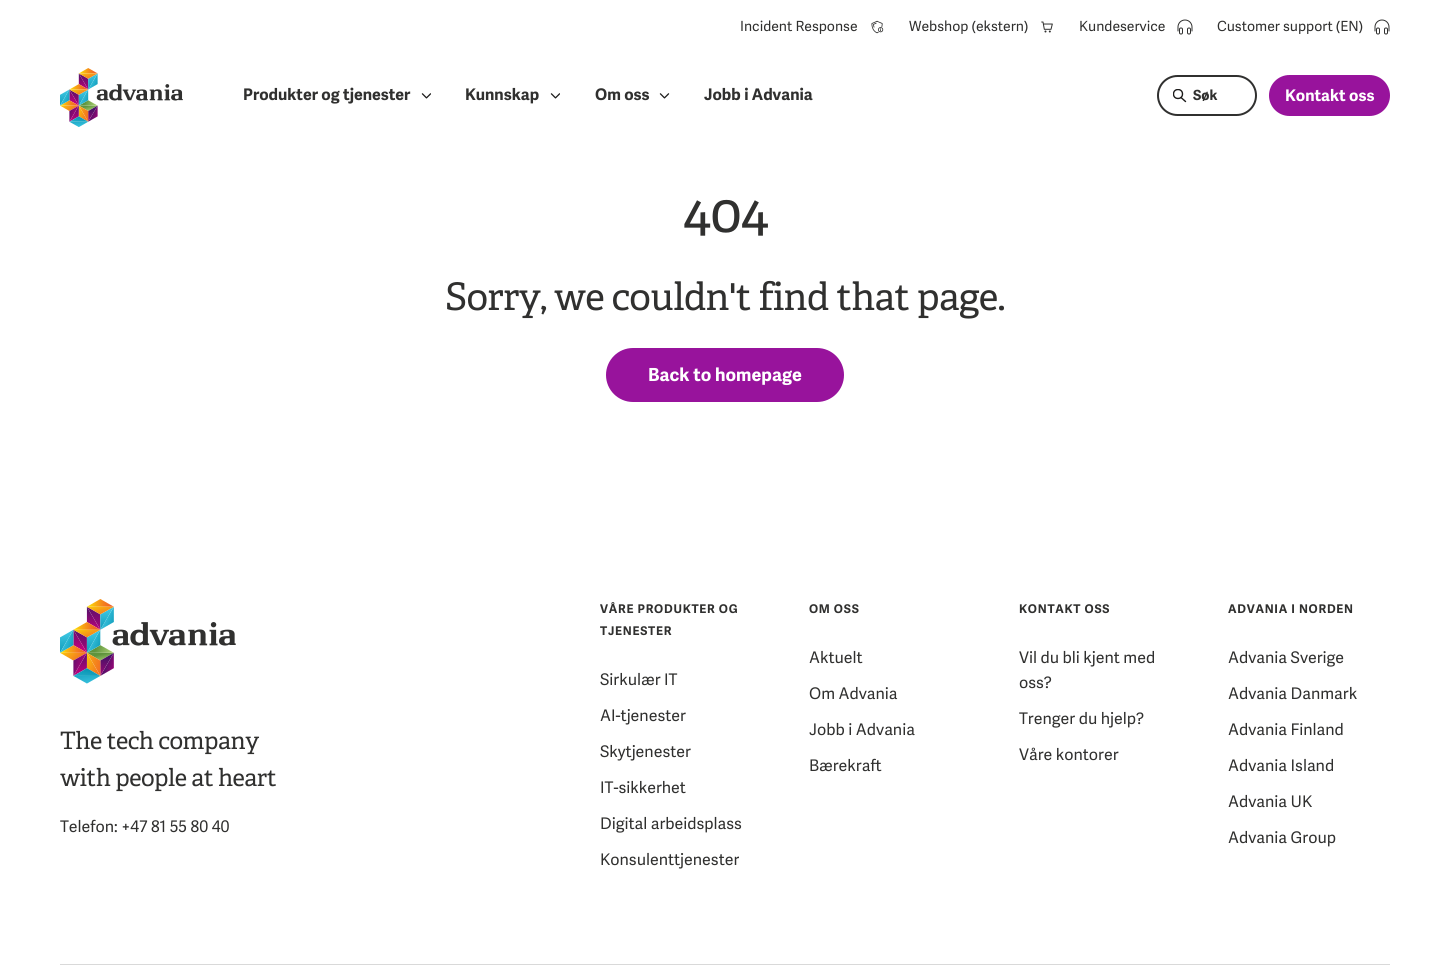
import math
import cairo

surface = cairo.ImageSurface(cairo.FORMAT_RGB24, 1450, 975)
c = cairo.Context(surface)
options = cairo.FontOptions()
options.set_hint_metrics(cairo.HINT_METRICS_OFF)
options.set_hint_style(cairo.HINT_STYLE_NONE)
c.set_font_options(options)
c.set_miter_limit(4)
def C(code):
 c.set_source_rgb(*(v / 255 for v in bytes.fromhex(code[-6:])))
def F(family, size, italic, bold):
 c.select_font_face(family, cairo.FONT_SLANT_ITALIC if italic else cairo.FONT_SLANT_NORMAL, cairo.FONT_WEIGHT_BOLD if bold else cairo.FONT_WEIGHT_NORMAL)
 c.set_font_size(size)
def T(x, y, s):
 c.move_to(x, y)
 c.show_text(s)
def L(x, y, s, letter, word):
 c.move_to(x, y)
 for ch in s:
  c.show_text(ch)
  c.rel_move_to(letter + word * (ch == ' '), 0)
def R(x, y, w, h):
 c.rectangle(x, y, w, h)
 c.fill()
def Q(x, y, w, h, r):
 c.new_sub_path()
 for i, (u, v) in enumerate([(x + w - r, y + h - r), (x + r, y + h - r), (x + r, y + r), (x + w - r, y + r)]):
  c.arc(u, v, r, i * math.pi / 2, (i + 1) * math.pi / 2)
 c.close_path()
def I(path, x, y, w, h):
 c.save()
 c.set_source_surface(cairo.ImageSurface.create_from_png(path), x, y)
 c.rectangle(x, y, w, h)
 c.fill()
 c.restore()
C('ffffff')
c.paint()
F('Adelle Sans',14,0,0)
C('30302f')
T(740,31,'Incident Response')
I('1.png',871,20,13,14)
T(909,31,'Webshop (ekstern)')
I('2.png',1041,21,12,12)
T(1079,31,'Kundeservice')
I('3.png',1177,19,16,16)
T(1217,31,'Customer support (EN)')
I('3.png',1374,19,16,16)
I('4.png',60,68,123,59)
F('Adelle Sans',16,0,1)
T(243,100,'Produkter og tjenester')
I('5.png',421,93,10,6)
T(465,100,'Kunnskap')
I('5.png',550,93,10,6)
T(595,100,'Om oss')
I('6.png',659,93,11,6)
T(704,100,'Jobb i Advania')
c.save()
c.rectangle(1173,89,13,14)
c.clip()
c.arc(1178,94,4.5,0,2 * math.pi)
C('1d1c1b')
c.set_line_width(1.4)
c.stroke()
c.restore()
c.new_path()
c.move_to(1181,97.5)
c.line_to(1185.5,101.5)
C('1d1c1b')
c.set_line_width(1.4)
c.set_line_cap(cairo.LINE_CAP_ROUND)
c.stroke()
Q(1158,76,98,39,19.5)
C('30302f')
c.set_line_width(2)
c.set_line_cap(cairo.LINE_CAP_BUTT)
c.stroke()
F('Adelle Sans',14,0,1)
T(1193,100,'Søk')
C('98139c')
Q(1270,76,119,39,19.5)
c.fill_preserve()
c.stroke()
F('Adelle Sans',16,0,1)
C('ffffff')
T(1285,101,'Kontakt oss')
F('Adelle',55,0,0)
C('30302f')
L(683,232,'404',-1,0)
F('Adelle',38,0,0)
L(445,310,'Sorry, we couldn\'t find that page.',-.75,0)
C('98139c')
Q(607,349,236,52,26)
c.fill_preserve()
c.stroke()
F('Adelle Sans',18,0,1)
C('ffffff')
T(648,381,'Back to homepage')
C('d9d9d9')
R(60,964,1330,1)
I('7.png',60,599,176,85)
F('Adelle',24,0,0)
C('30302f')
L(60,749,'The tech company',-.5,0)
L(60,786,'with people at heart',-.5,0)
F('Adelle Sans',16,0,0)
T(60,832,'Telefon: +47 81 55 80 40')
F('Adelle Sans',12,0,1)
L(600,613,'VÅRE PRODUKTER OG',.75,0)
L(600,635,'TJENESTER',.75,0)
F('Adelle Sans',16,0,0)
T(600,685,'Sirkulær IT')
T(600,721,'AI-tjenester')
T(600,757,'Skytjenester')
T(600,793,'IT-sikkerhet')
T(600,829,'Digital arbeidsplass')
T(600,865,'Konsulenttjenester')
F('Adelle Sans',12,0,1)
L(809,613,'OM OSS',.75,0)
F('Adelle Sans',16,0,0)
T(809,663,'Aktuelt')
T(809,699,'Om Advania')
T(809,735,'Jobb i Advania')
T(809,771,'Bærekraft')
F('Adelle Sans',12,0,1)
L(1019,613,'KONTAKT OSS',.75,0)
F('Adelle Sans',16,0,0)
T(1019,663,'Vil du bli kjent med')
T(1019,688,'oss?')
T(1019,724,'Trenger du hjelp?')
T(1019,760,'Våre kontorer')
F('Adelle Sans',12,0,1)
L(1228,613,'ADVANIA I NORDEN',.75,0)
F('Adelle Sans',16,0,0)
T(1228,663,'Advania Sverige')
T(1228,699,'Advania Danmark')
T(1228,735,'Advania Finland')
T(1228,771,'Advania Island')
T(1228,807,'Advania UK')
T(1228,843,'Advania Group')
surface.write_to_png('o.png')
